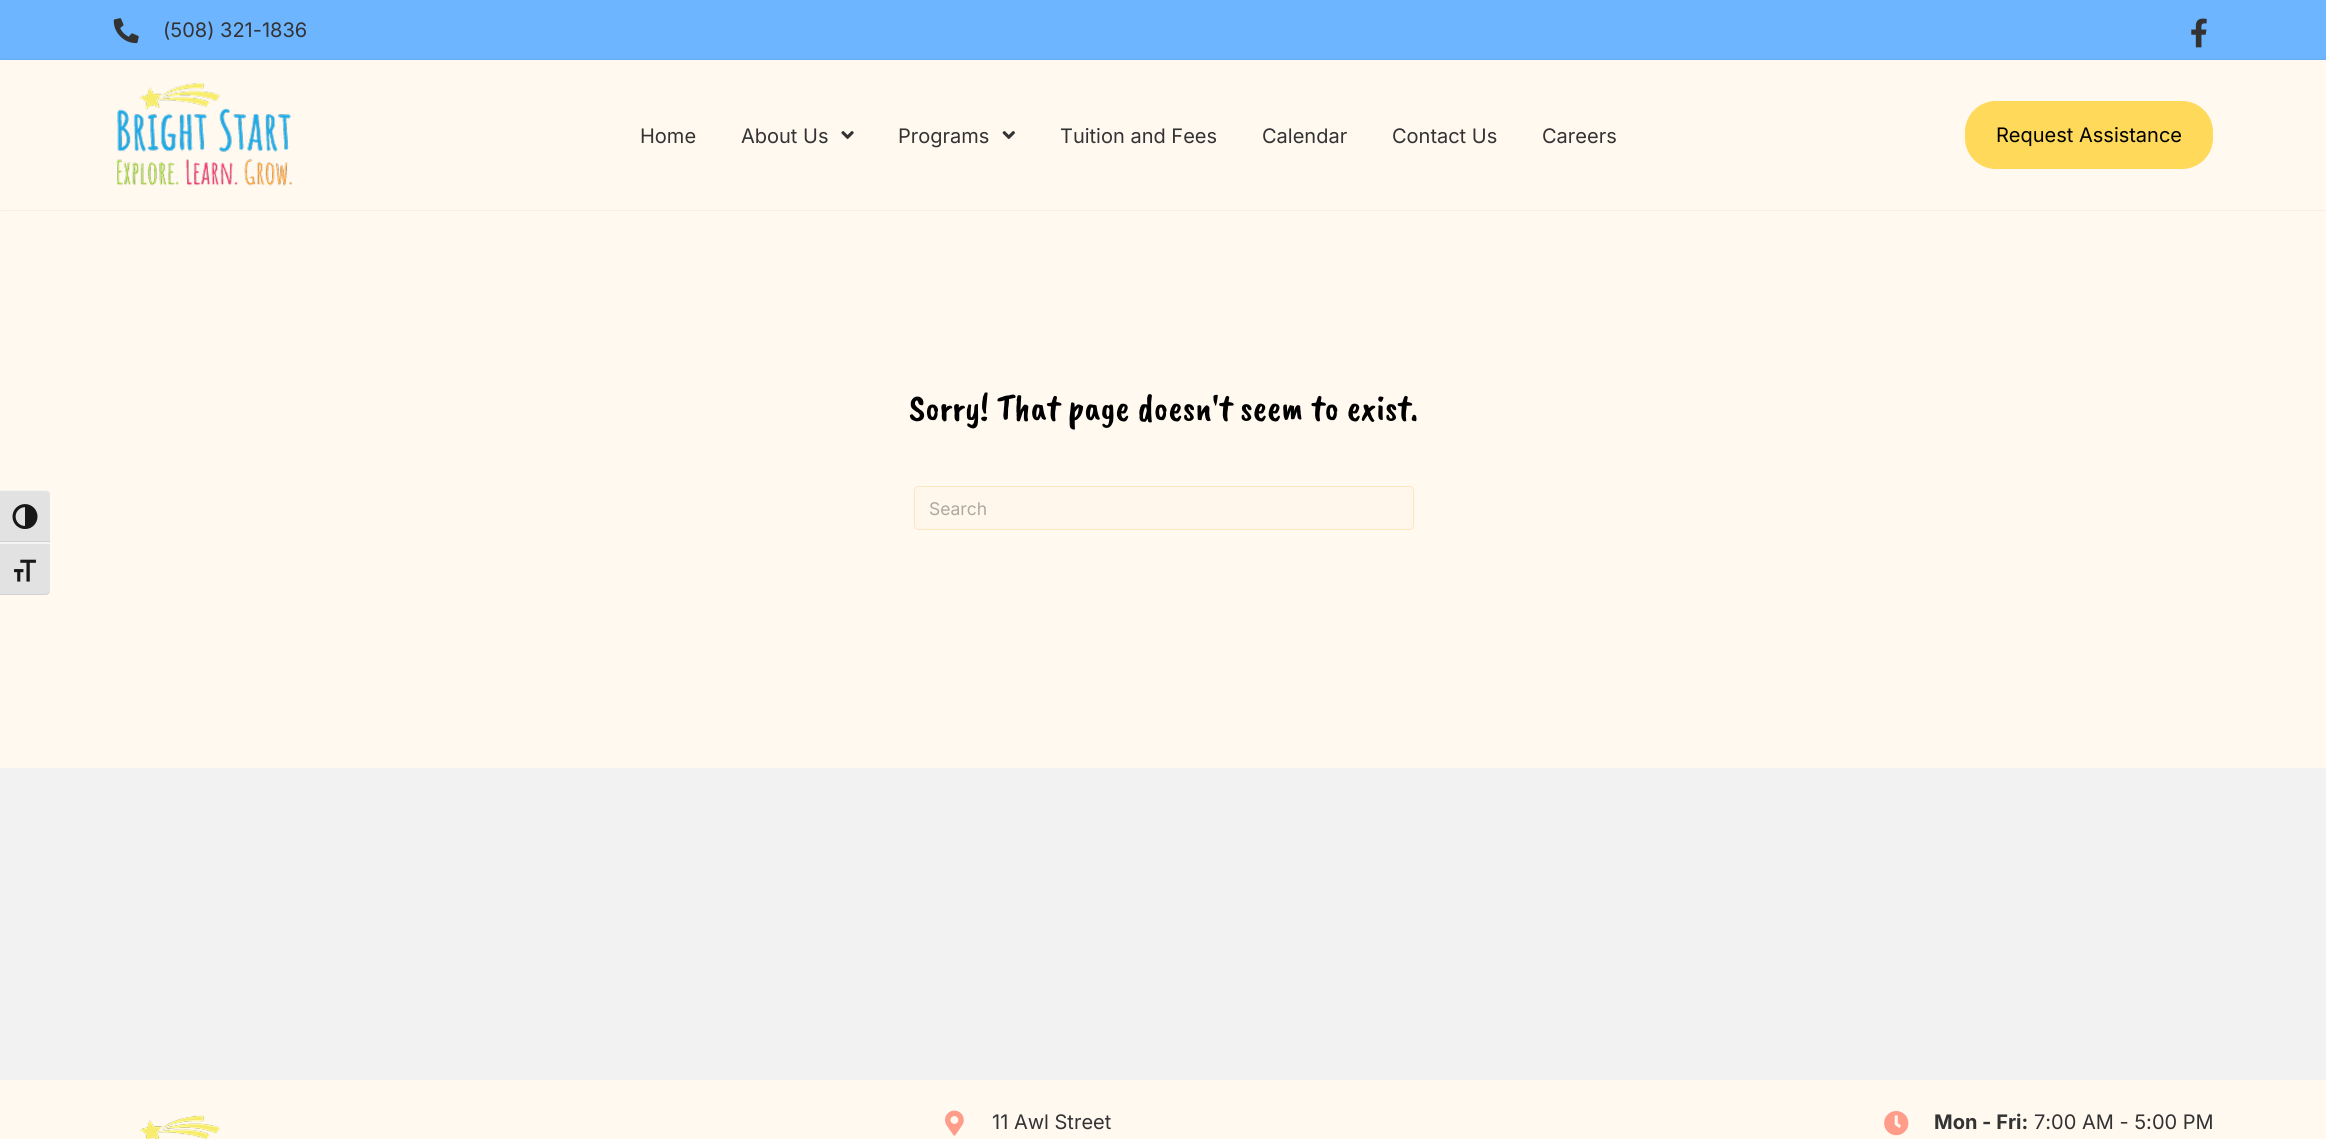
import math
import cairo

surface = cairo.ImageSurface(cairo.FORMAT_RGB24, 2326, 1139)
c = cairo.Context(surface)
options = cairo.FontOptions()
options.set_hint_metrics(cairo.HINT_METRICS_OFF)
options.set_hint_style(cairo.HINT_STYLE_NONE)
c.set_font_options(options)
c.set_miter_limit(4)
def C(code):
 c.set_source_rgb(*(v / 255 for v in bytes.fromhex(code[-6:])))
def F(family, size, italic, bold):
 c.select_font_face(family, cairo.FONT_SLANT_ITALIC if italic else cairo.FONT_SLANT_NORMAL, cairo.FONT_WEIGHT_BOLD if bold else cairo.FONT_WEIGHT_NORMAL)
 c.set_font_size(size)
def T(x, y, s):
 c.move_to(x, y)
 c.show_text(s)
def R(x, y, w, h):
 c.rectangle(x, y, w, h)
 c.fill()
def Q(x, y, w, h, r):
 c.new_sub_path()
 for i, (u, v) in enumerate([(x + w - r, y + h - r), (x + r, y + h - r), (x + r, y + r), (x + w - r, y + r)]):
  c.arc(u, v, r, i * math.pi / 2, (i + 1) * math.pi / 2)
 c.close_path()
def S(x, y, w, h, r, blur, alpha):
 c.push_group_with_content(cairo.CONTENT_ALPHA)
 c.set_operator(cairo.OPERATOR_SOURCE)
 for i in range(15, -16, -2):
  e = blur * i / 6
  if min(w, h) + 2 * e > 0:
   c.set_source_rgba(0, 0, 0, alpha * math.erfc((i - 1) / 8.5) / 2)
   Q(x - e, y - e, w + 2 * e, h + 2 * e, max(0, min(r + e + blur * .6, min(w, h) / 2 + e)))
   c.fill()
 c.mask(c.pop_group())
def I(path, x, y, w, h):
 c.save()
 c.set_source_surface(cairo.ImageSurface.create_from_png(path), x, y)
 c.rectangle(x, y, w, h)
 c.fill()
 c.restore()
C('f2f2f2')
c.paint()
C('fff9f0')
R(0,210,2326,558)
C('e2e2e2')
c.new_path()
c.move_to(0,490)
c.line_to(45,490)
c.curve_to(48,490,50,492,50,495)
c.line_to(50,543)
c.line_to(0,543)
c.close_path()
c.fill()
C('f5f5f5')
c.new_path()
c.move_to(0,490)
c.line_to(0,491)
c.line_to(45,491)
c.curve_to(48,491,50,493,50,495)
c.curve_to(50,492,48,490,45,490)
c.close_path()
c.fill()
C('d2d2d2')
R(0,541,50,1)
I('1.png',12,504,26,25)
C('e2e2e2')
c.new_path()
c.move_to(0,543)
c.line_to(50,543)
c.line_to(50,590)
c.curve_to(50,593,48,595,45,595)
c.line_to(0,595)
c.close_path()
c.fill()
C('f5f5f5')
R(0,542,50,2)
C('d2d2d2')
c.new_path()
c.move_to(0,594)
c.line_to(0,595)
c.line_to(45,595)
c.curve_to(48,595,50,593,50,590)
c.curve_to(50,592,48,594,45,594)
c.close_path()
c.fill()
I('2.png',14,559,22,23)
C('6eb5ff')
R(0,0,2326,60)
I('3.png',113,18,26,26)
F('Inter',20,0,0)
C('333333')
T(163,37,'(508) 321-1836')
I('4.png',2191,18,16,30)
C('000000')
S(0,60,2326,150,0,1,.11)
C('fff9f0')
R(0,60,2326,150)
I('5.png',116,82,176,104)
C('333333')
T(640,143,'Home')
T(741,143,'About Us')
I('6.png',841,131,13,8)
T(898,143,'Programs')
I('7.png',1002,131,13,8)
T(1060,143,'Tuition and Fees')
T(1262,143,'Calendar')
T(1392,143,'Contact Us')
T(1542,143,'Careers')
C('ffd95a')
Q(1965.5,101.5,247,67,30.5)
c.fill_preserve()
c.set_line_width(1)
c.stroke()
C('000000')
T(1996,142,'Request Assistance')
F('Caveat Brush',37.5,0,0)
T(909,420,'Sorry! That page doesn\'t seem to exist.')
C('fff7eb')
Q(915,488,498,41,4)
c.fill()
Q(914.5,486.5,499,43,4.5)
C('ffe5bd')
c.stroke()
F('Inter',17.5,0,0)
C('ada9a1')
T(929,515,'Search')
C('fff9f0')
R(0,1080,2326,59)
I('8.png',140,1115,80,24)
I('9.png',945,1110,19,26)
F('Inter',20,0,0)
C('333333')
T(992,1129,'11 Awl Street')
I('10.png',1884,1111,25,25)
F('Inter',20,0,1)
T(1934,1129,'Mon - Fri:')
F('Inter',20,0,0)
T(2034,1129,'7:00 AM - 5:00 PM')
surface.write_to_png('o.png')
